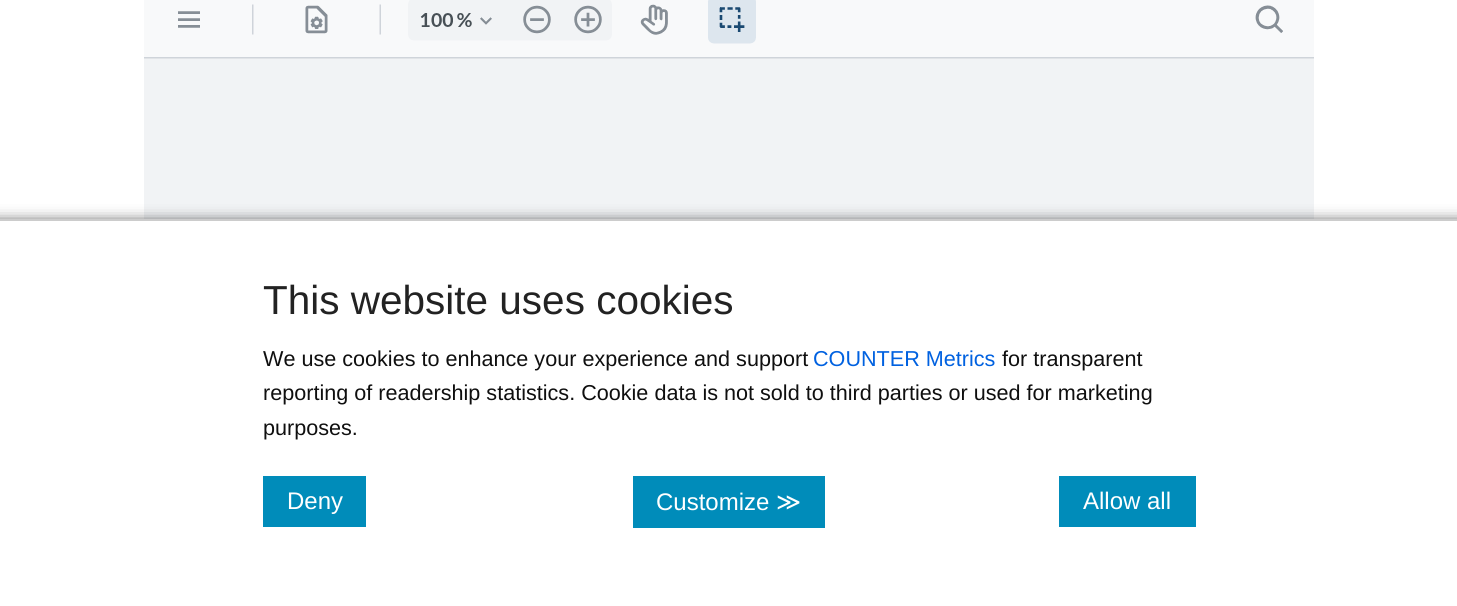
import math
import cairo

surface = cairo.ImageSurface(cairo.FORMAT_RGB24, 1457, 606)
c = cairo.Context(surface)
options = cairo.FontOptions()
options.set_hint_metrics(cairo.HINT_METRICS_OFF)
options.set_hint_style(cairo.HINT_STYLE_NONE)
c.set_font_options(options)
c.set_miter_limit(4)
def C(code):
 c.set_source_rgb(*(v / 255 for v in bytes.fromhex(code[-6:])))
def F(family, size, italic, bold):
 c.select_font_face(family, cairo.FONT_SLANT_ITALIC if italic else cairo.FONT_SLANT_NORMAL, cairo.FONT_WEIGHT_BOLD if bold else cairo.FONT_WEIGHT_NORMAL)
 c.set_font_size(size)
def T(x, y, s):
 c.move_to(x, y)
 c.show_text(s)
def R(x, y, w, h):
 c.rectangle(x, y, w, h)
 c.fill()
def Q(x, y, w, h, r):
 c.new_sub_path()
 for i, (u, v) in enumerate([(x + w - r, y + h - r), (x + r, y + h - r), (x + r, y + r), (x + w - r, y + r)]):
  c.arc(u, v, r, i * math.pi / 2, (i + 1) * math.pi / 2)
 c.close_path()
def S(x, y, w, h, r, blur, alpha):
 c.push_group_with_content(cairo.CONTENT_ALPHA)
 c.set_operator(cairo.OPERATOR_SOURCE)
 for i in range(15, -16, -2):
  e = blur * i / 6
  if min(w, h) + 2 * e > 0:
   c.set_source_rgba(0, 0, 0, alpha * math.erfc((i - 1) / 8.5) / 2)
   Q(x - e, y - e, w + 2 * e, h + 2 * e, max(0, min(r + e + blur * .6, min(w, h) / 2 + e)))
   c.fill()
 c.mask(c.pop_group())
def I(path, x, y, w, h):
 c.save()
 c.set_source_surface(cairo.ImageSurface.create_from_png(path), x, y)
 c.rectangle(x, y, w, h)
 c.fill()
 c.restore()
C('ffffff')
c.paint()
I('1.png',144,0,1170,219)
C('000000')
S(-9,224,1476,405,0,8,1)
C('ffffff')
R(0,221,1457,385)
C('cccccc')
R(0,219,1457,2)
F('Liberation Sans',40.5,0,0)
C('222222')
T(263,314,'This website uses cookies')
F('Liberation Sans',21.6,0,0)
C('0f0f0f')
T(263,366,'We use cookies to enhance your experience and support')
C('0061e0')
T(813,366,'COUNTER Metrics')
C('0f0f0f')
T(1002,366,'for transparent')
T(263,400,'reporting of readership statistics. Cookie data is not sold to third parties or used for marketing')
T(263,435,'purposes.')
C('008cba')
R(263,476,103,51)
F('Liberation Sans',24,0,0)
C('ffffff')
T(287,509,'Deny')
C('008cba')
R(633,476,192,52)
C('ffffff')
T(656,510,'Customize')
F('DejaVu Sans',24,0,0)
T(776,510,'≫')
C('008cba')
R(1059,476,137,51)
F('Liberation Sans',24,0,0)
C('ffffff')
T(1083,509,'Allow all')
surface.write_to_png('o.png')
